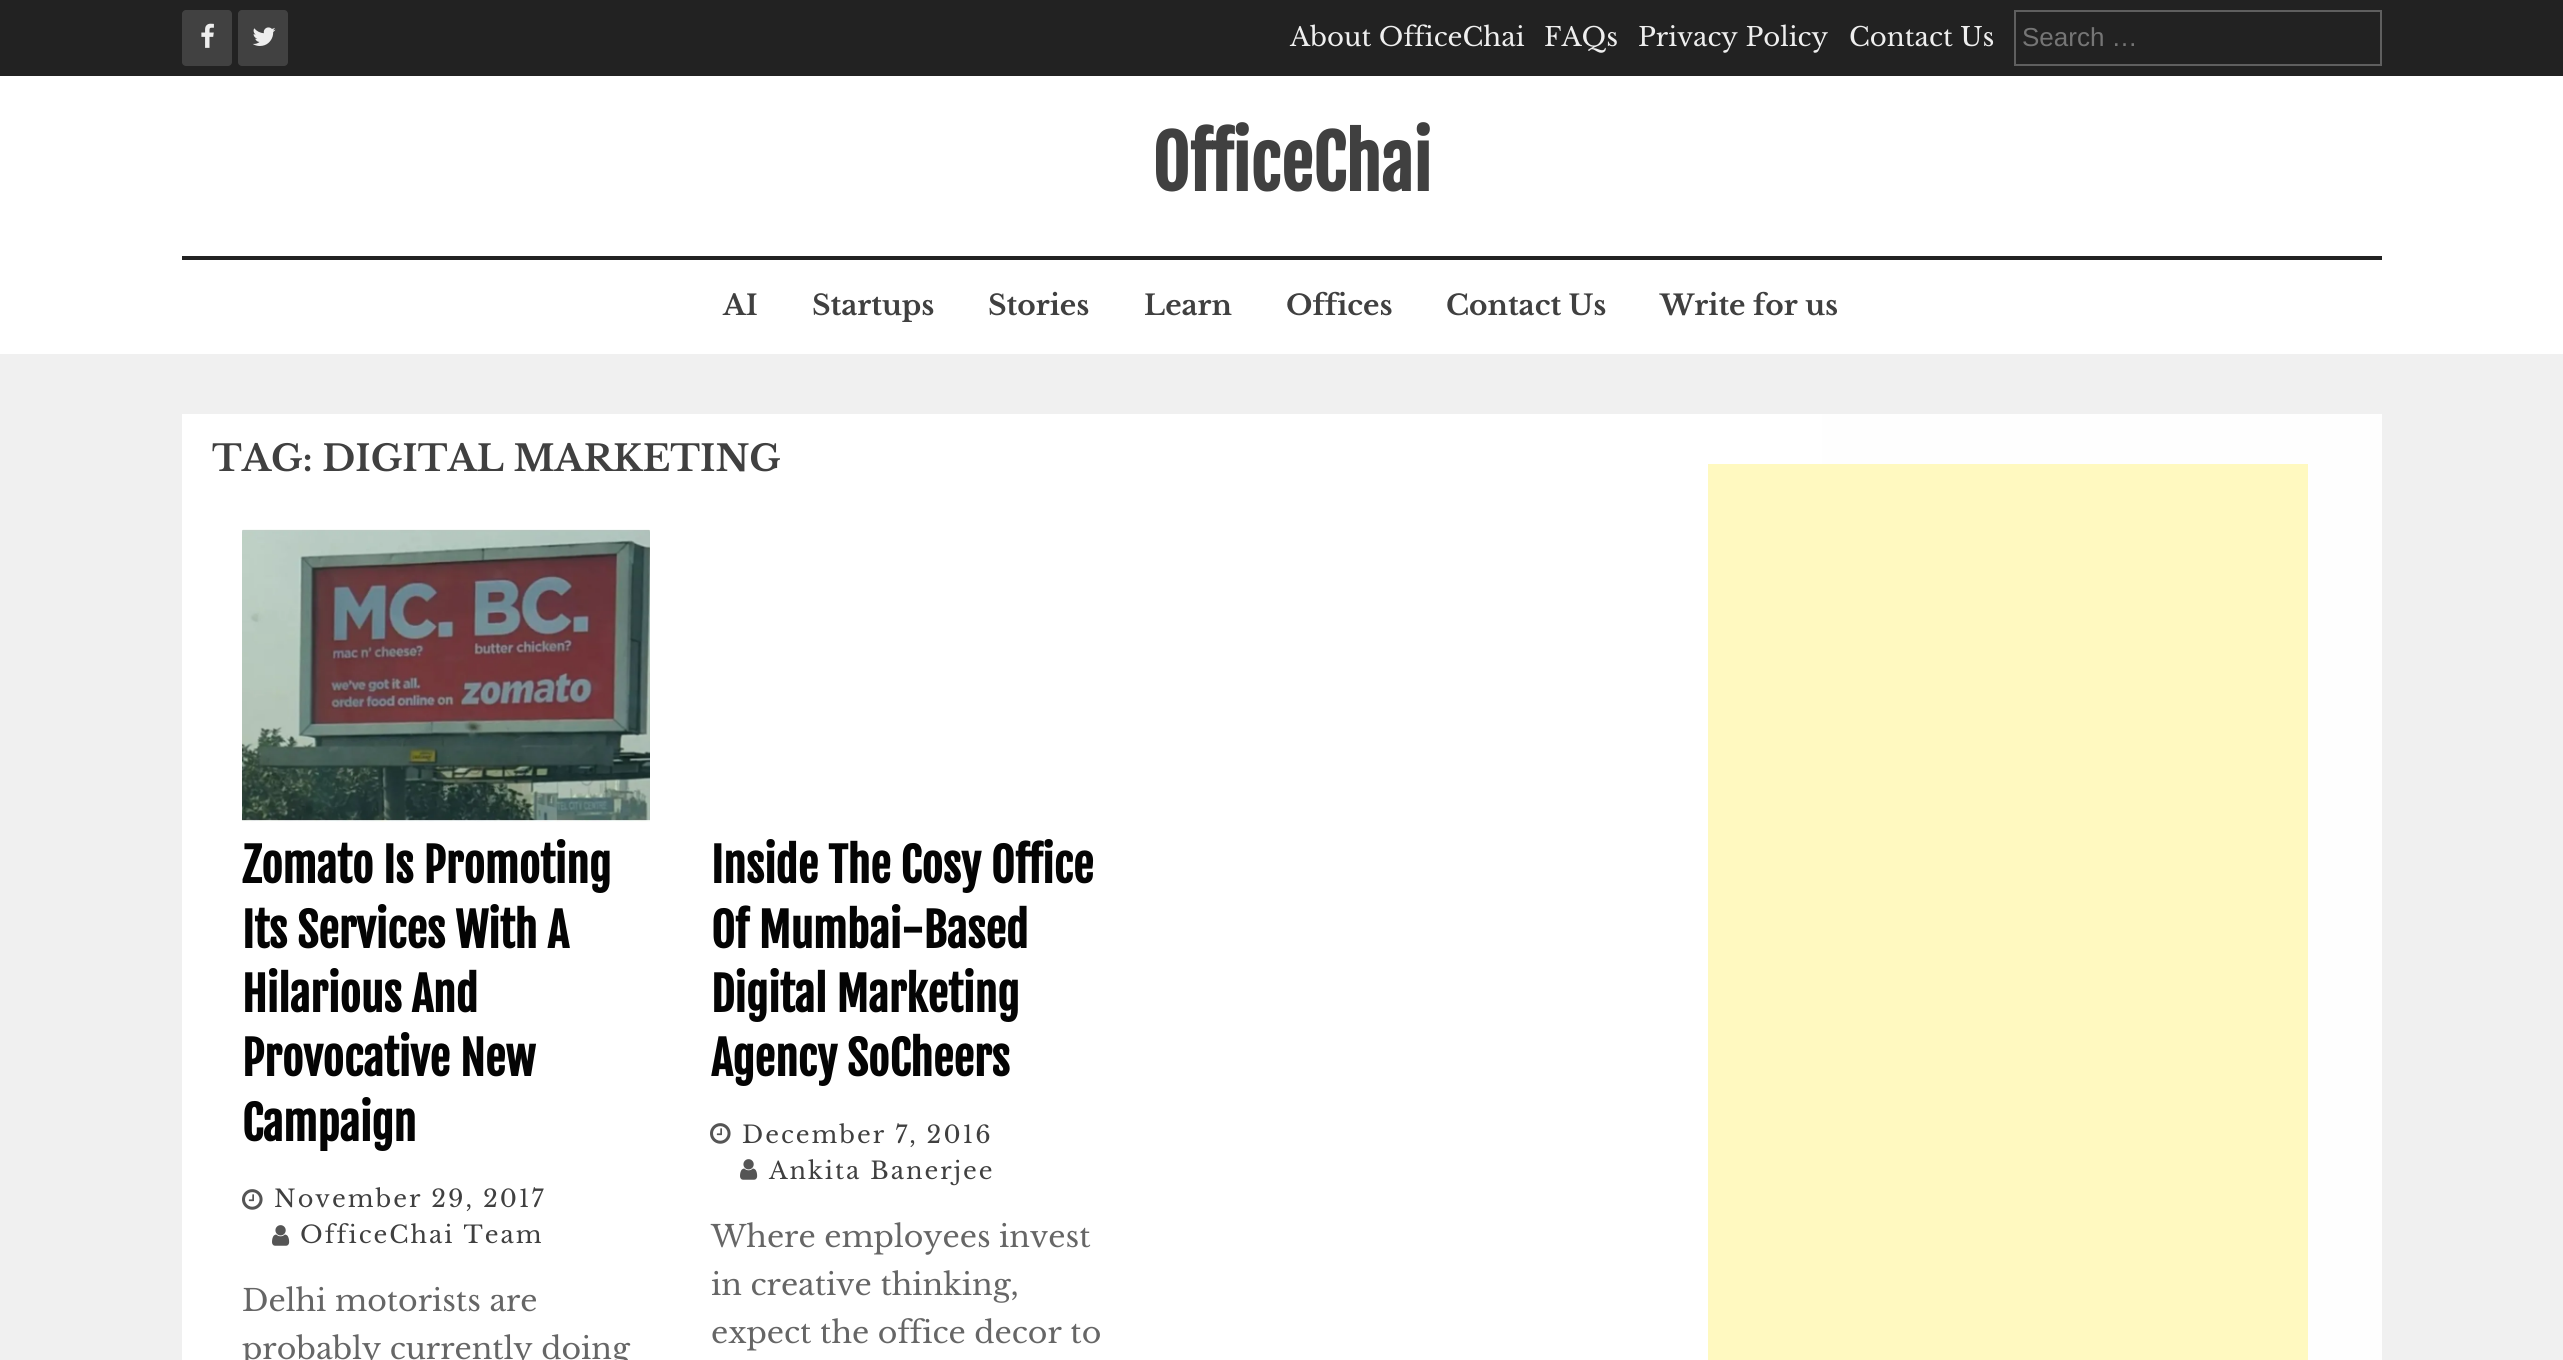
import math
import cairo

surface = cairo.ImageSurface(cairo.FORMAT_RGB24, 2563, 1360)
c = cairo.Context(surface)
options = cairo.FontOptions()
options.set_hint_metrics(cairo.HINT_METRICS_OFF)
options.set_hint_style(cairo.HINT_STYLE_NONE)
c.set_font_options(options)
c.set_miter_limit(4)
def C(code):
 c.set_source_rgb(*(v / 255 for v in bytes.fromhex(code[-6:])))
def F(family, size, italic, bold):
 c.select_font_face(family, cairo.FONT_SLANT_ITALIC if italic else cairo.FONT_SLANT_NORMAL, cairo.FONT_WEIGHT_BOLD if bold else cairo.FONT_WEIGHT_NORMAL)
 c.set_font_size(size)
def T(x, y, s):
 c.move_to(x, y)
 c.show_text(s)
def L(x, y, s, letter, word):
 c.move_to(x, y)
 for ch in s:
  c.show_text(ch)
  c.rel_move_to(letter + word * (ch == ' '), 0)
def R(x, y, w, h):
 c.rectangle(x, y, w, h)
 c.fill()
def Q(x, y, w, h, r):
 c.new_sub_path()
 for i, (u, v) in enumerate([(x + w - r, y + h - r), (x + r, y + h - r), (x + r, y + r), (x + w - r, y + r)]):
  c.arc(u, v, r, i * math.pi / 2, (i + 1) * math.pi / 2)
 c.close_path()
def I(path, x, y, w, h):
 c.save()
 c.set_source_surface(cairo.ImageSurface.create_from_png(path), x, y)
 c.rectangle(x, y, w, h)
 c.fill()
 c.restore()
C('f0f0f0')
c.paint()
C('222222')
R(0,0,2563,76)
C('414141')
Q(182,10,50,56,4)
c.fill()
I('1.png',201,23,13,25)
Q(238,10,50,56,4)
c.fill()
I('2.png',252,27,24,19)
F('Libre Baskerville',26,0,0)
C('eeeeee')
T(1290,46,'About OfficeChai')
T(1544,46,'FAQs')
T(1638,46,'Privacy Policy')
T(1849,46,'Contact Us')
c.rectangle(2015,11,366,54)
C('5f5f5f')
c.stroke()
F('Liberation Sans',26,0,0)
C('757575')
T(2022,46,'Search …')
C('ffffff')
R(0,76,2563,278)
F('Fjalla One',72,0,1)
C('404040')
T(1152,191,'OfficeChai')
C('222222')
R(182,256,2200,4)
F('Libre Baskerville',28,0,1)
C('404040')
T(723,315,'AI')
T(812,315,'Startups')
T(988,315,'Stories')
T(1144,315,'Learn')
T(1286,315,'Offices')
T(1446,315,'Contact Us')
T(1660,315,'Write for us')
gradient = cairo.LinearGradient(182,1223,2382,1223)
gradient.add_color_stop_rgba(0,1,1,1,1)
gradient.add_color_stop_rgba(.5,1,1,1,1)
gradient.add_color_stop_rgba(1,0.996,0.996,0.996,1)
c.set_source(gradient)
R(182,414,2200,946)
F('Libre Baskerville',36,0,1)
C('404040')
T(212,471,'TAG: DIGITAL MARKETING')
I('3.png',242,529,408,293)
F('Fjalla One',46,0,1)
C('040404')
T(242,883,'Zomato Is Promoting')
T(242,948,'Its Services With A')
T(242,1012,'Hilarious And')
T(242,1076,'Provocative New')
T(242,1141,'Campaign')
I('4.png',242,1189,21,21)
F('Libre Baskerville',24,0,0)
C('404040')
L(274,1207,'November 29, 2017',2,0)
I('5.png',272,1225,18,21)
L(300,1243,'OfficeChai Team',2,0)
F('Libre Baskerville',30,0,0)
C('666666')
T(242,1311,'Delhi motorists are')
T(242,1359,'probably currently doing')
F('Fjalla One',46,0,1)
C('040404')
T(711,883,'Inside The Cosy Office')
T(711,948,'Of Mumbai-Based')
T(711,1012,'Digital Marketing')
T(711,1076,'Agency SoCheers')
I('4.png',710,1123,21,21)
F('Libre Baskerville',24,0,0)
C('404040')
L(742,1143,'December 7, 2016',2,0)
I('5.png',740,1159,18,21)
L(769,1179,'Ankita Banerjee',2,0)
F('Libre Baskerville',30,0,0)
C('666666')
T(711,1247,'Where employees invest')
T(711,1295,'in creative thinking,')
T(711,1343,'expect the office decor to')
C('fff9c0')
R(1708,464,600,896)
surface.write_to_png('o.png')
